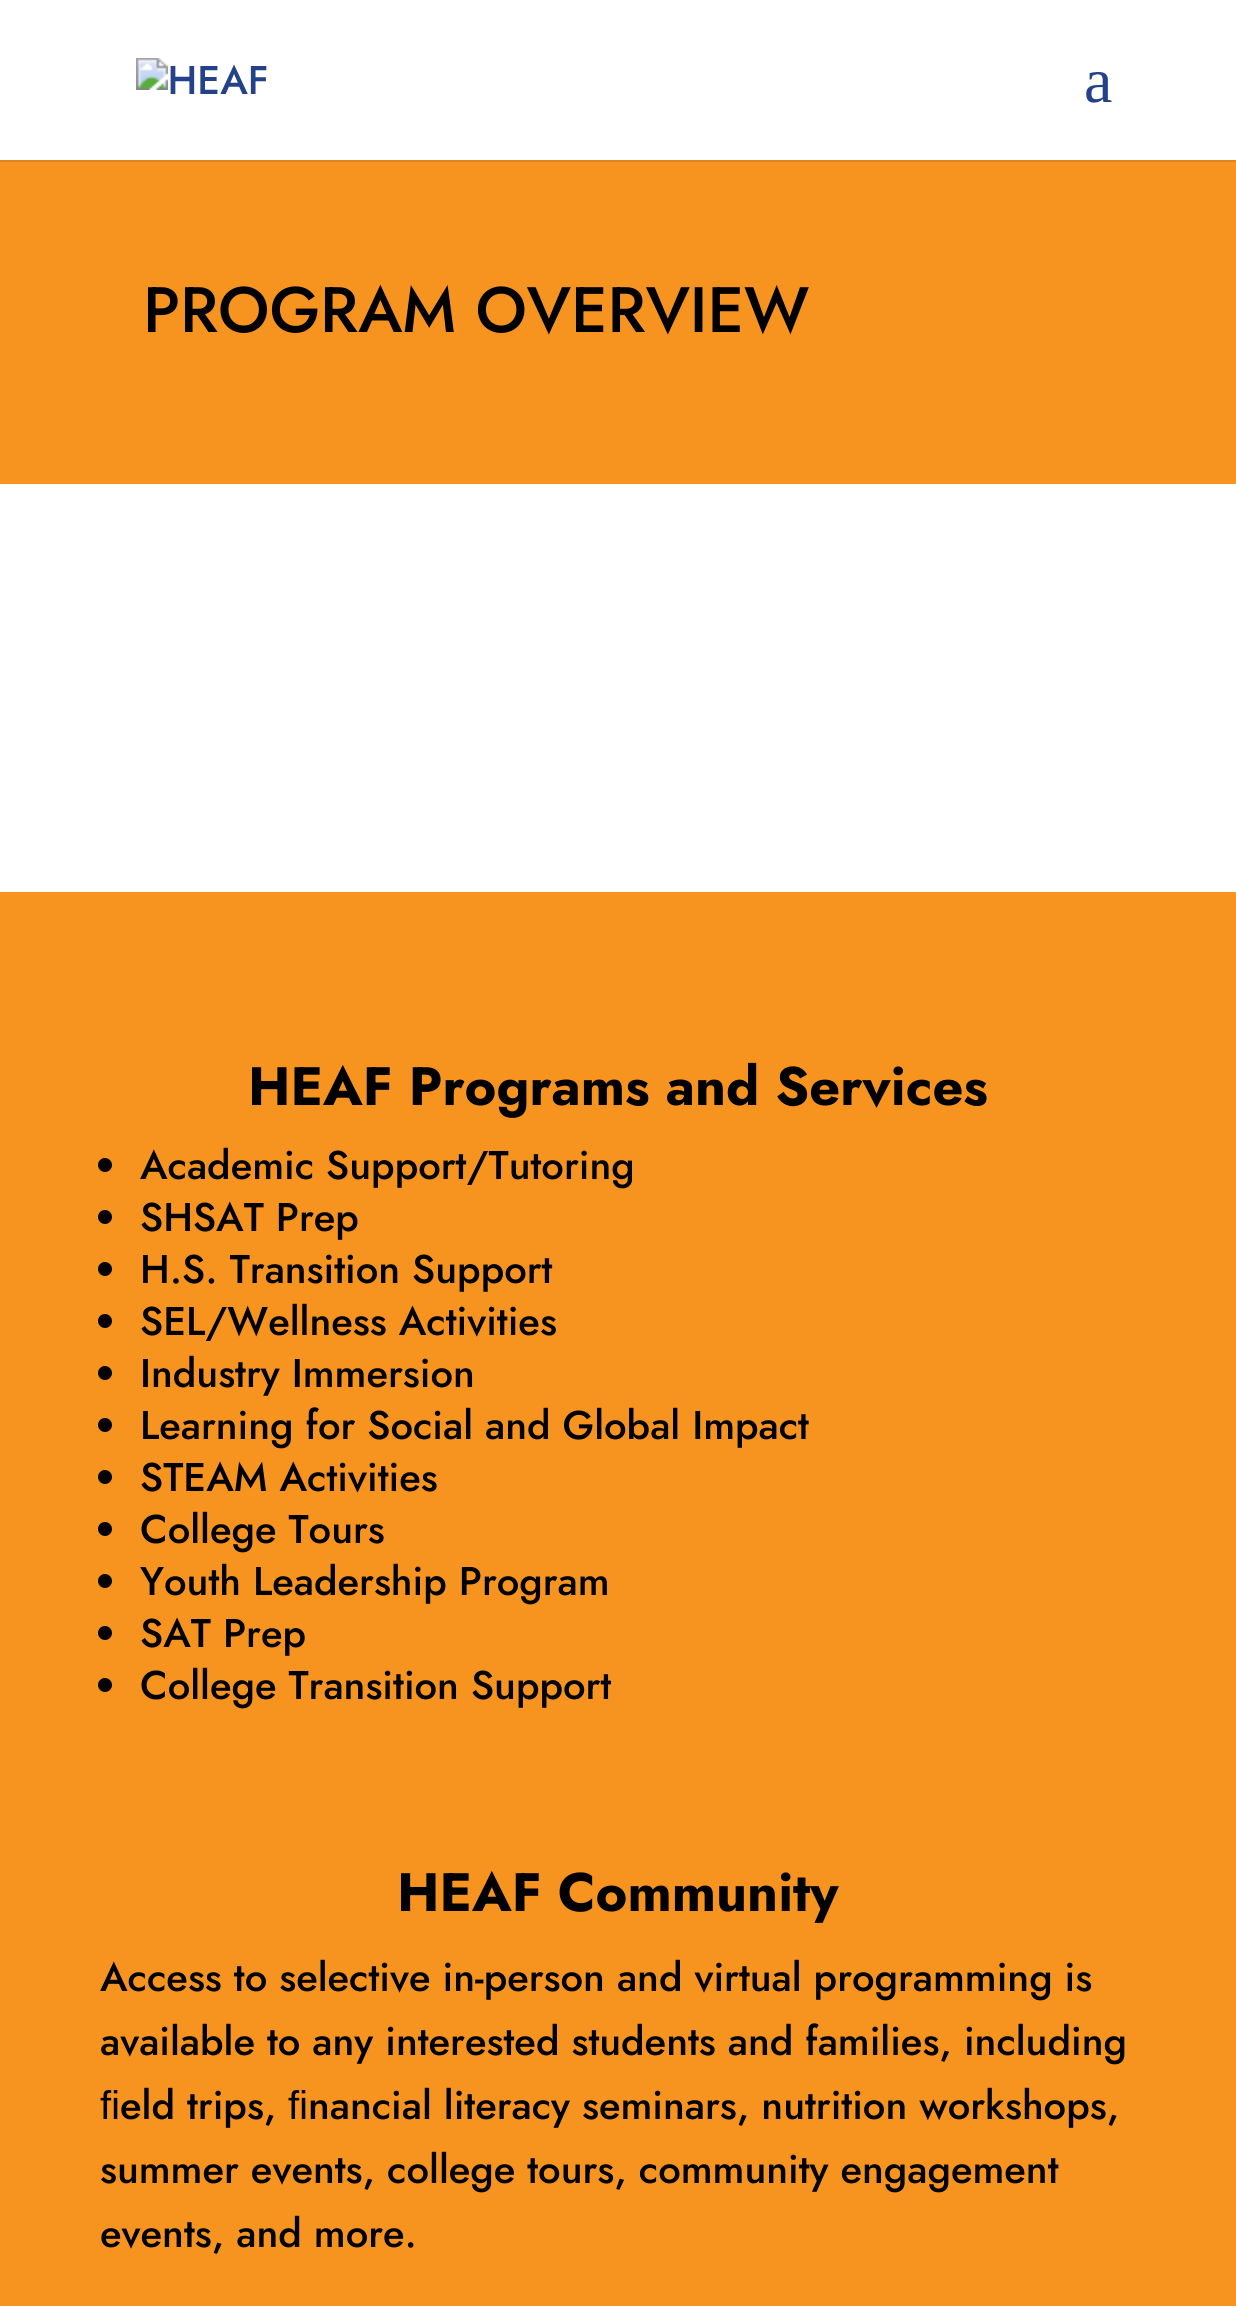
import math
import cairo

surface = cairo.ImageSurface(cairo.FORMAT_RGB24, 1236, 2306)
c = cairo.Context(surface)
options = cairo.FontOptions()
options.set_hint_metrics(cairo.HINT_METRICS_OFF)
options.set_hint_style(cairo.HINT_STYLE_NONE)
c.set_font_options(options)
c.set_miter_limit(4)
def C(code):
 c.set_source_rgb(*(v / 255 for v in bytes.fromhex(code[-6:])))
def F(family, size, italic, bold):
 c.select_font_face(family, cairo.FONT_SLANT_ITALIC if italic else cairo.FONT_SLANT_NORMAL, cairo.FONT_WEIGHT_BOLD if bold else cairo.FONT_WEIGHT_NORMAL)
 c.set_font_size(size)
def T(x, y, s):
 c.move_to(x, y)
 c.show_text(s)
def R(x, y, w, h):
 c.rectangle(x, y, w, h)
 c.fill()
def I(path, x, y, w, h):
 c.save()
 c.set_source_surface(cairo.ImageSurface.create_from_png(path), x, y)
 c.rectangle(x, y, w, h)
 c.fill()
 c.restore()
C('ffffff')
c.paint()
C('de851d')
R(0,160,1236,2)
I('1.png',136,58,131,36)
F('Liberation Serif',64,0,0)
C('234289')
T(1084,102,'a')
C('f79420')
R(0,162,1236,322)
F('Jost Medium',64,0,0)
C('000000')
T(143,332,'PROGRAM OVERVIEW')
C('f79420')
R(0,892,1236,1414)
F('Jost',54,0,1)
C('000000')
T(248,1105,'HEAF Programs and Services')
c.new_path()
c.arc(105,1165,7,0,2 * math.pi)
c.fill()
F('Jost Medium',40,0,0)
T(140,1179,'Academic Support/Tutoring')
c.new_path()
c.arc(105,1217,7,0,2 * math.pi)
c.fill()
T(140,1231,'SHSAT Prep')
c.new_path()
c.arc(105,1269,7,0,2 * math.pi)
c.fill()
T(140,1283,'H.S. Transition Support')
c.new_path()
c.arc(105,1321,7,0,2 * math.pi)
c.fill()
T(140,1335,'SEL/Wellness Activities')
c.new_path()
c.arc(105,1373,7,0,2 * math.pi)
c.fill()
T(140,1387,'Industry Immersion')
c.new_path()
c.arc(105,1425,7,0,2 * math.pi)
c.fill()
T(140,1439,'Learning for Social and Global Impact')
c.new_path()
c.arc(105,1477,7,0,2 * math.pi)
c.fill()
T(140,1491,'STEAM Activities')
c.new_path()
c.arc(105,1529,7,0,2 * math.pi)
c.fill()
T(140,1543,'College Tours')
c.new_path()
c.arc(105,1581,7,0,2 * math.pi)
c.fill()
T(140,1595,'Youth Leadership Program')
c.new_path()
c.arc(105,1633,7,0,2 * math.pi)
c.fill()
T(140,1647,'SAT Prep')
c.new_path()
c.arc(105,1685,7,0,2 * math.pi)
c.fill()
T(140,1699,'College Transition Support')
F('Jost',54,0,1)
T(397,1911,'HEAF Community')
F('Jost Medium',40,0,0)
T(100,1991,'Access to selective in-person and virtual programming is')
T(100,2055,'available to any interested students and families, including')
F('Liberation Sans',40,0,0)
T(100,2119,'ﬁ')
F('Jost Medium',40,0,0)
T(120,2119,'eld trips,')
F('Liberation Sans',40,0,0)
T(288,2119,'ﬁ')
F('Jost Medium',40,0,0)
T(308,2119,'nancial literacy seminars, nutrition workshops,')
T(100,2183,'summer events, college tours, community engagement')
T(100,2247,'events, and more.')
surface.write_to_png('o.png')
